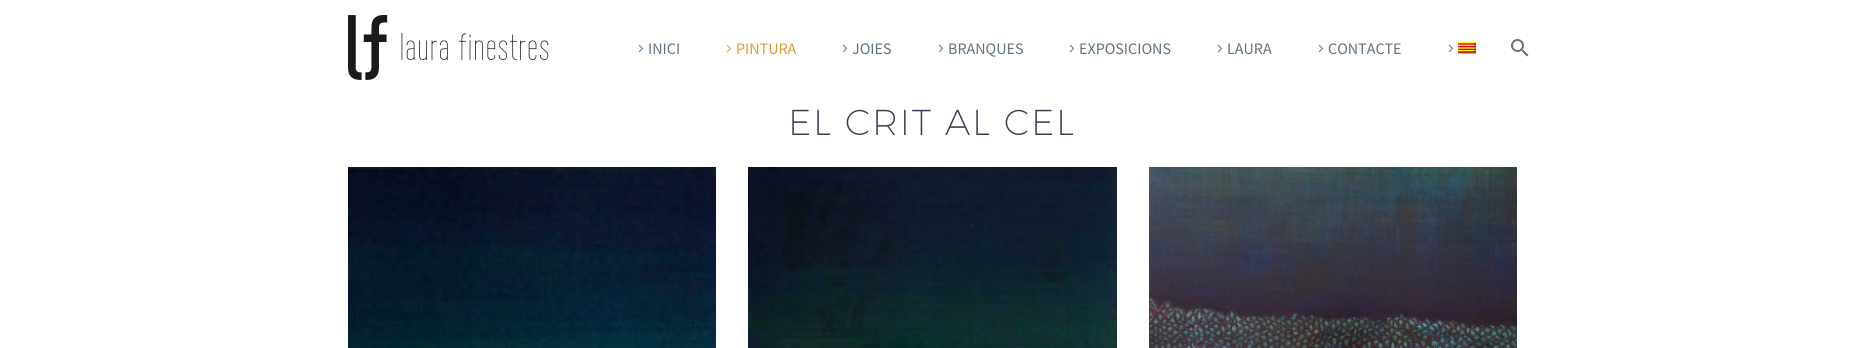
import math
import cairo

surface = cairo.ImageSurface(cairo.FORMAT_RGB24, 1865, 348)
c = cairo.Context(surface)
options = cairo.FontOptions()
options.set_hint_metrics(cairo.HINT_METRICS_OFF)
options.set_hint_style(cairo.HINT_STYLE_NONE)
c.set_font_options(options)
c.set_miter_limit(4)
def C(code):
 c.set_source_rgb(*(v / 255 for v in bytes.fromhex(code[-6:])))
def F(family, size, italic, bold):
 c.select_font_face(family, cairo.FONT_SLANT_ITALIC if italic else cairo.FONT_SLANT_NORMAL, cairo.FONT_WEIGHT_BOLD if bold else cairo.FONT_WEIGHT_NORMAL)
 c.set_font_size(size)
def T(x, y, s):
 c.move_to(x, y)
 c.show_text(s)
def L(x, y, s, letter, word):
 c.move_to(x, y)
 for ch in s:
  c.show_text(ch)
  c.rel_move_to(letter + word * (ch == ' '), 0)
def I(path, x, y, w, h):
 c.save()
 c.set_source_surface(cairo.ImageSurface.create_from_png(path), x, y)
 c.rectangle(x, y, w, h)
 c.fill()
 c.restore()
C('ffffff')
c.paint()
I('1.png',348,15,201,65)
I('2.png',638,44,5,9)
F('Source Sans Pro',16,0,0)
C('5f727f')
T(648,54,'INICI')
I('3.png',726,44,5,9)
C('dd9933')
T(736,54,'PINTURA')
I('2.png',842,44,5,9)
C('5f727f')
T(852,54,'JOIES')
I('2.png',938,44,5,9)
T(948,54,'BRANQUES')
I('2.png',1069,44,5,9)
T(1079,54,'EXPOSICIONS')
I('2.png',1217,44,5,9)
T(1227,54,'LAURA')
I('2.png',1318,44,5,9)
T(1328,54,'CONTACTE')
I('2.png',1448,44,5,9)
I('4.png',1458,42,18,12)
I('5.png',1511,39,18,18)
F('Montserrat ExtraLight',36,0,0)
C('3c3950')
L(788,135,'EL CRIT AL CEL',1.75,0)
I('6.png',348,167,368,181)
I('7.png',748,167,369,181)
I('8.png',1149,167,368,181)
surface.write_to_png('o.png')
